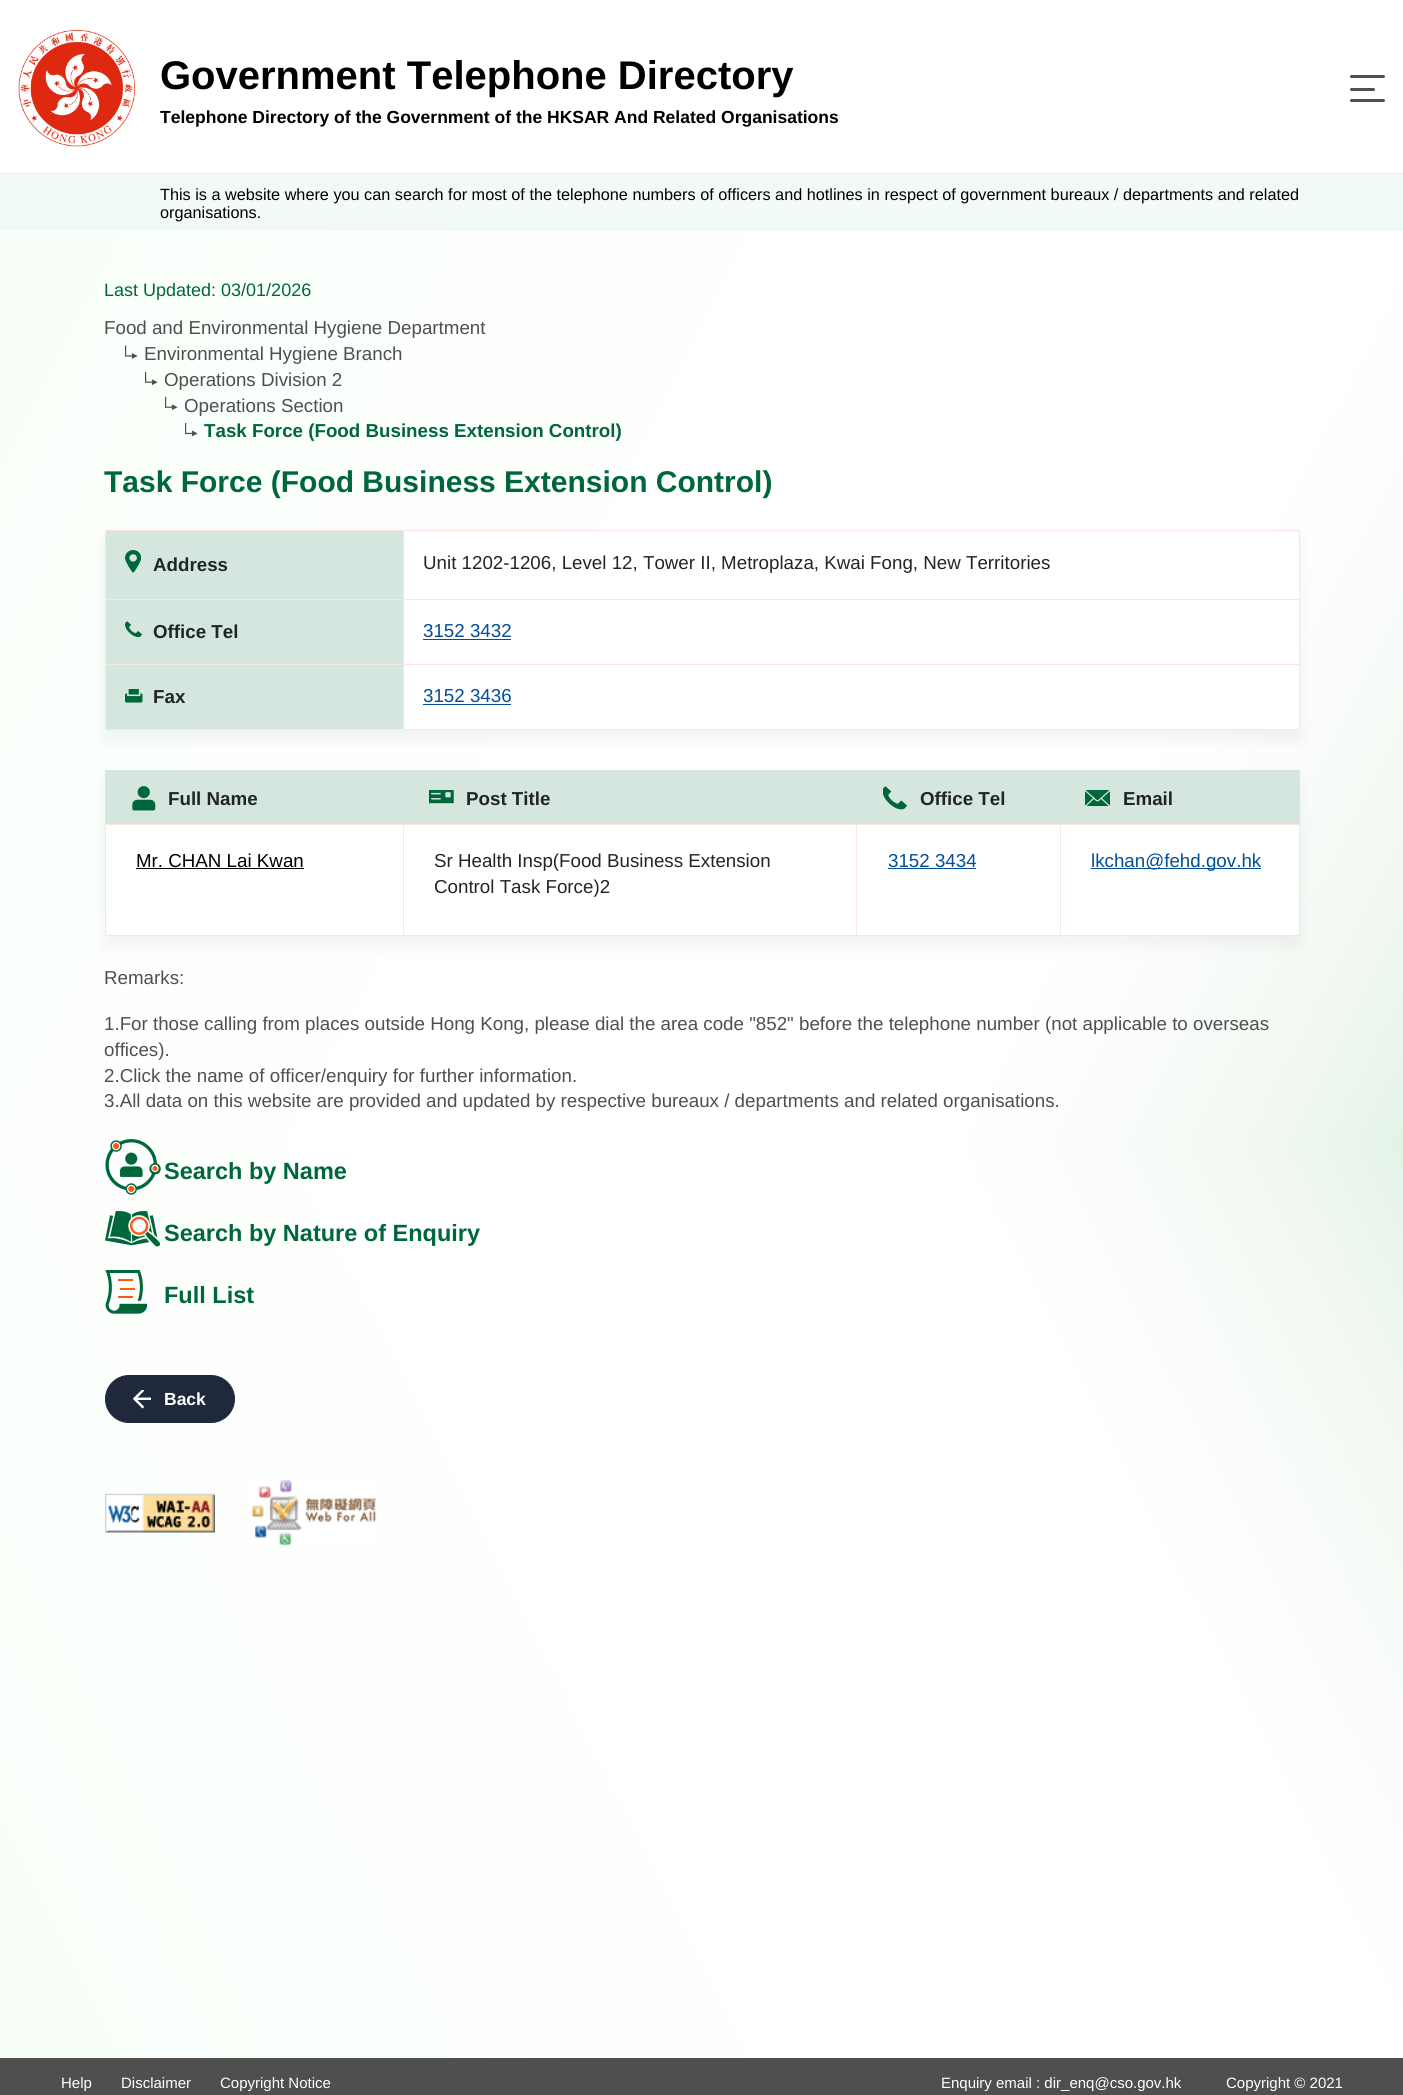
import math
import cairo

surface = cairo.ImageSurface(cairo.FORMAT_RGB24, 1403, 2095)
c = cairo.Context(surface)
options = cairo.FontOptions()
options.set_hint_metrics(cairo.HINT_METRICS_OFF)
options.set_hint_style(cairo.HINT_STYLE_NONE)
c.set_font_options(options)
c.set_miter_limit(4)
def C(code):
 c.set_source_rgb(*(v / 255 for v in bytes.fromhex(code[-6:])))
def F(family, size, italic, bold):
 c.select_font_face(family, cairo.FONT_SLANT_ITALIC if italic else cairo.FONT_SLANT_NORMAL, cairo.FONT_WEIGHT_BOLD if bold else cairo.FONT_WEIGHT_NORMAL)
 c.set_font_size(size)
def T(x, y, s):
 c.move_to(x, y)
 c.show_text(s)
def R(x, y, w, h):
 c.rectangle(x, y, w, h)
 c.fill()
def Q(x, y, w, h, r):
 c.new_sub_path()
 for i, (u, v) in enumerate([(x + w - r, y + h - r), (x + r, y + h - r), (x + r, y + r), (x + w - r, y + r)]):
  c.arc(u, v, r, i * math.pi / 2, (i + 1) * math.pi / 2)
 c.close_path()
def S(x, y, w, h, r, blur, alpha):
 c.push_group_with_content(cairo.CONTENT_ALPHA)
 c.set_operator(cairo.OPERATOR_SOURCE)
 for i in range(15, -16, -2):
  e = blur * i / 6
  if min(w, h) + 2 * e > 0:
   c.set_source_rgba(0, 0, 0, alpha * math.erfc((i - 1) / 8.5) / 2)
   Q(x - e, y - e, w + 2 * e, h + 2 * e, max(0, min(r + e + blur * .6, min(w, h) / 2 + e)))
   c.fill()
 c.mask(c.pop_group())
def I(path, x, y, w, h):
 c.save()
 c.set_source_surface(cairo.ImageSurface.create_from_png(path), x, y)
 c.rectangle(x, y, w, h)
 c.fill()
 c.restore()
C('ffffff')
c.paint()
C('ededed')
R(0,173,1403,1)
I('1.png',18,30,117,117)
F('Liberation Sans',40,0,1)
C('000000')
T(160,89,'Government Telephone Directory')
F('Liberation Sans',17.5,0,1)
T(160,123,'Telephone Directory of the Government of the HKSAR And Related Organisations')
C('4f4f4f')
Q(1350,75,35,3,1.5)
c.fill()
Q(1350,88,25,3,1.5)
c.fill()
Q(1350,99,35,3,1.5)
c.fill()
C('f1faf6')
R(0,174,1403,57)
F('Liberation Sans',16.25,0,0)
C('000000')
T(160,200,'This is a website where you can search for most of the telephone numbers of officers and hotlines in respect of government bureaux / departments and related')
T(160,218,'organisations.')
I('2.png',0,231,1403,1827)
F('Liberation Sans',18,0,0)
C('00673b')
T(104,296,'Last Updated: 03/01/2026')
F('Liberation Sans',18.75,0,0)
C('4f4f4f')
T(104,334,'Food and Environmental Hygiene Department')
I('3.png',125,345,13,14)
T(144,360,'Environmental Hygiene Branch')
I('4.png',145,371,13,14)
T(164,386,'Operations Division 2')
I('5.png',165,396,13,14)
T(184,412,'Operations Section')
I('6.png',185,423,13,14)
F('Liberation Sans',18.75,0,1)
C('00673b')
T(204,437,'Task Force (Food Business Extension Control)')
F('Liberation Sans',30,0,1)
T(104,492,'Task Force (Food Business Extension Control)')
C('000000')
S(105,540,1195,200,0,7.5,.05)
C('ffffff')
R(404,531,895,198)
C('d5e6df')
R(106,531,297,68)
C('f8e6df')
R(403,530,897,1)
R(403,599,897,1)
R(403,664,897,1)
R(1299,664,1,66)
R(403,729,897,1)
R(403,664,1,66)
R(105,664,299,1)
R(403,599,1,66)
R(105,599,299,1)
R(403,530,1,70)
R(105,530,299,1)
R(105,729,299,1)
R(105,664,1,66)
R(105,599,1,66)
R(105,530,1,70)
I('7.png',125,550,16,23)
F('Liberation Sans',18.75,0,1)
C('212529')
T(153,571,'Address')
C('f8e6df')
R(1299,599,1,66)
R(1299,530,1,70)
F('Liberation Sans',18.75,0,0)
C('212529')
T(423,569,'Unit 1202-1206, Level 12, Tower II, Metroplaza, Kwai Fong, New Territories')
C('d5e6df')
R(106,600,297,64)
I('8.png',125,621,17,17)
F('Liberation Sans',18.75,0,1)
C('212529')
T(153,638,'Office Tel')
F('Liberation Sans',18.75,0,0)
C('024f98')
T(423,637,'3152 3432')
R(423,639,88,1)
C('d5e6df')
R(106,665,297,64)
I('9.png',125,689,18,14)
F('Liberation Sans',18.75,0,1)
C('212529')
T(153,703,'Fax')
F('Liberation Sans',18.75,0,0)
C('024f98')
T(423,702,'3152 3436')
R(423,704,88,1)
C('000000')
S(105,780,1195,166,0,7.5,.05)
C('ffffff')
R(106,825,1193,110)
C('d5e6df')
R(105,770,1195,1)
R(1299,770,1,55)
R(105,771,1194,53)
I('10.png',132,786,24,25)
F('Liberation Sans',18.75,0,1)
C('212529')
T(168,805,'Full Name')
I('11.png',429,790,25,14)
T(466,805,'Post Title')
I('12.png',883,786,24,24)
T(920,805,'Office Tel')
I('13.png',1085,790,25,16)
T(1123,805,'Email')
C('f8e6df')
R(1060,824,240,1)
R(1299,824,1,112)
R(1060,935,240,1)
R(1060,824,1,112)
R(856,824,205,1)
R(856,935,205,1)
R(856,824,1,112)
R(403,824,455,1)
R(403,935,455,1)
R(403,824,1,112)
R(105,824,299,1)
R(105,935,299,1)
R(105,824,1,112)
F('Liberation Sans',18.75,0,0)
C('000000')
T(136,867,'Mr. CHAN Lai Kwan')
R(136,868,168,1)
C('212529')
T(434,867,'Sr Health Insp(Food Business Extension')
T(434,893,'Control Task Force)2')
C('024f98')
T(888,867,'3152 3434')
R(888,868,88,1)
R(1091,868,170,1)
T(1091,867,'lkchan@fehd.gov.hk')
C('4f4f4f')
T(104,984,'Remarks:')
T(104,1030,'1.For those calling from places outside Hong Kong, please dial the area code "852" before the telephone number (not applicable to overseas')
T(104,1056,'offices).')
T(104,1082,'2.Click the name of officer/enquiry for further information.')
T(104,1107,'3.All data on this website are provided and updated by respective bureaux / departments and related organisations.')
I('14.png',105,1139,56,56)
F('Liberation Sans',23.5,0,1)
C('00673b')
T(164,1179,'Search by Name')
I('15.png',105,1211,55,36)
T(164,1241,'Search by Nature of Enquiry')
I('16.png',105,1270,43,44)
T(164,1303,'Full List')
C('20293c')
Q(105.5,1375.5,129,47,23.5)
c.fill_preserve()
c.set_line_width(1)
c.stroke()
I('17.png',133,1390,18,19)
F('Liberation Sans',17.5,0,1)
C('ffffff')
T(164,1405,'Back')
I('18.png',105,1493,110,40)
I('19.png',252,1479,125,67)
C('4f4f4f')
R(0,2058,1403,37)
F('Liberation Sans',15,0,0)
C('ffffff')
T(61,2088,'Help')
T(121,2088,'Disclaimer')
T(220,2088,'Copyright Notice')
T(941,2088,'Enquiry email : dir_enq@cso.gov.hk')
T(1226,2088,'Copyright © 2021')
surface.write_to_png('o.png')
